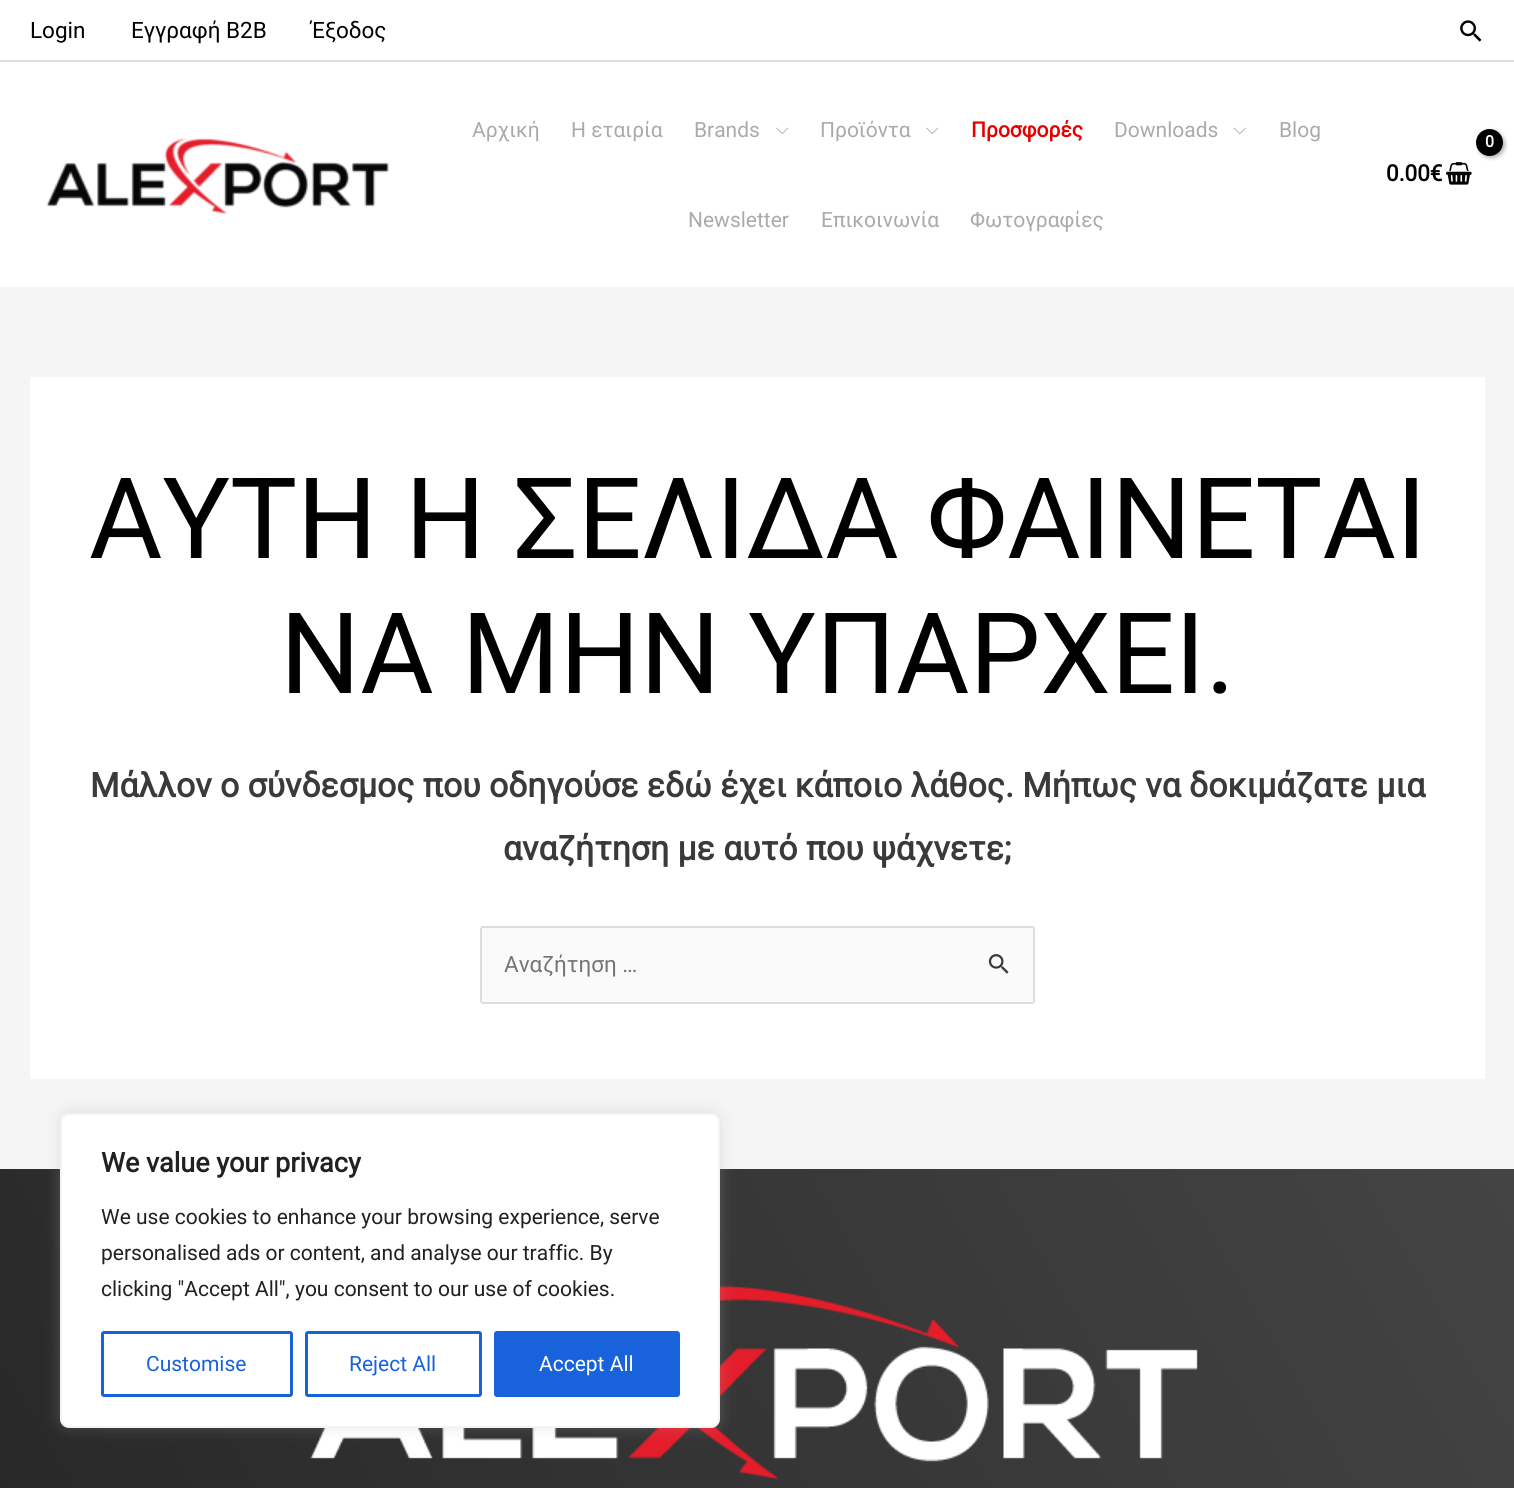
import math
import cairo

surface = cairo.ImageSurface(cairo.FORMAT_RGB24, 1514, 1488)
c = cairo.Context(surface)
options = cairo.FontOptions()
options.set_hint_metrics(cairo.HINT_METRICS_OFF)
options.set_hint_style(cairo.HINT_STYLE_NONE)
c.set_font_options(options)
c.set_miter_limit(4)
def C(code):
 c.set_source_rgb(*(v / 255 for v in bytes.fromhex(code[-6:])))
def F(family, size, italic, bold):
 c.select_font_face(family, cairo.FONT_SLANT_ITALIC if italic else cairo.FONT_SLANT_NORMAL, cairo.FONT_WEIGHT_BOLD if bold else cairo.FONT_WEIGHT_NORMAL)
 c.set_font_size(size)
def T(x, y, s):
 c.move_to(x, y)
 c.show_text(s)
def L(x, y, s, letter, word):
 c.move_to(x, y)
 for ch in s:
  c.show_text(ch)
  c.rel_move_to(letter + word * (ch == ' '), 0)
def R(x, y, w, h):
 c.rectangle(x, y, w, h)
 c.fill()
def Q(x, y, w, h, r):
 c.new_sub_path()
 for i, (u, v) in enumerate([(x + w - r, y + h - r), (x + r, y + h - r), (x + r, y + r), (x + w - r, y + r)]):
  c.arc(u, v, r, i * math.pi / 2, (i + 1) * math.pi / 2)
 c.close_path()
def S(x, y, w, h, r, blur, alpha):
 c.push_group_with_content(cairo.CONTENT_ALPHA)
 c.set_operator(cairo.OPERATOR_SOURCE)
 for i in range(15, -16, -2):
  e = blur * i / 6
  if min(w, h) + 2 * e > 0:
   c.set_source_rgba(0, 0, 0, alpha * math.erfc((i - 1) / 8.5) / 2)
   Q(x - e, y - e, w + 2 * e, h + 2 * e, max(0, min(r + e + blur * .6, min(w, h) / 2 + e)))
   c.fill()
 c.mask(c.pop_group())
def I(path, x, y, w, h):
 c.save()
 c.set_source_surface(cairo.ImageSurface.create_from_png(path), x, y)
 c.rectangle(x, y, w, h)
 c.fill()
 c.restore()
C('f5f5f5')
c.paint()
C('ffffff')
R(0,0,1514,60)
C('dddddd')
R(0,60,1514,2)
F('Roboto',22.5,0,0)
C('000000')
T(30,38,'Login')
T(131,38,'Εγγραφή B2B')
T(311,38,'Έξοδος')
I('1.png',1460,20,22,22)
C('ffffff')
R(0,62,1514,225)
I('2.png',46,138,343,77)
F('Roboto',21,0,0)
C('aaaaaa')
T(472,137,'Αρχική')
T(571,137,'Η εταιρία')
T(694,137,'Brands')
I('3.png',776,127,13,7)
T(820,137,'Προϊόντα')
I('3.png',926,127,13,7)
F('Roboto',21,0,1)
C('e60000')
T(971,137,'Προσφορές')
F('Roboto',21,0,0)
C('aaaaaa')
T(1114,137,'Downloads')
I('4.png',1233,127,13,7)
T(1279,137,'Blog')
T(688,227,'Newsletter')
T(821,227,'Επικοινωνία')
T(970,227,'Φωτογραφίες')
I('5.png',1446,162,26,23)
C('000000')
S(1478,131,27,27,13.5,2,.3)
C('000000')
c.arc(1489.5,142.5,13.5,0,2 * math.pi)
c.fill()
F('Roboto',16,0,1)
C('ffffff')
L(1485,147,'0',-1,0)
F('Roboto',22.5,0,1)
C('000000')
T(1386,181,'0.00€')
C('ffffff')
R(30,377,1455,702)
F('Roboto',112.5,0,0)
C('000000')
T(89,558,'ΑΥΤΗ Η ΣΕΛΙΔΑ ΦΑΙΝΕΤΑΙ')
T(280,693,'ΝΑ ΜΗΝ ΥΠΑΡΧΕΙ.')
F('Roboto',33.75,0,1)
C('3a3a3a')
T(90,797,'Μάλλον ο σύνδεσμος που οδηγούσε εδώ έχει κάποιο λάθος. Μήπως να δοκιμάζατε μια')
T(503,860,'αναζήτηση με αυτό που ψάχνετε;')
C('fafafa')
Q(481,927,553,76,2)
c.fill_preserve()
C('dddddd')
c.stroke()
F('Roboto',22.5,0,0)
C('757575')
T(504,972,'Αναζήτηση …')
I('6.png',988,954,21,20)
gradient = cairo.LinearGradient(-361,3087,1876,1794)
gradient.add_color_stop_rgba(.3,0.133,0.133,0.133,1)
gradient.add_color_stop_rgba(1,0.267,0.267,0.267,1)
c.set_source(gradient)
R(0,1169,1514,319)
I('7.png',310,1285,888,195)
C('acabab')
S(60,1112,660,315,9,7.5,.3)
C('ffffff')
Q(61,1114,658,313,8)
c.fill_preserve()
C('f4f4f4')
c.stroke()
F('Roboto',27,0,1)
C('212121')
T(101,1172,'We value your privacy')
F('Roboto',21,0,0)
T(101,1224,'We use cookies to enhance your browsing experience, serve')
T(101,1260,'personalised ads or content, and analyse our traffic. By')
T(101,1296,'clicking "Accept All", you consent to our use of cookies.')
Q(102.5,1332.5,189,63,1.5)
C('1863dc')
c.set_line_width(3)
c.stroke()
T(146,1371,'Customise')
Q(306.5,1332.5,174,63,1.5)
c.stroke()
T(349,1371,'Reject All')
Q(495.5,1332.5,183,63,1.5)
c.fill_preserve()
c.stroke()
C('ffffff')
T(539,1371,'Accept All')
surface.write_to_png('o.png')
